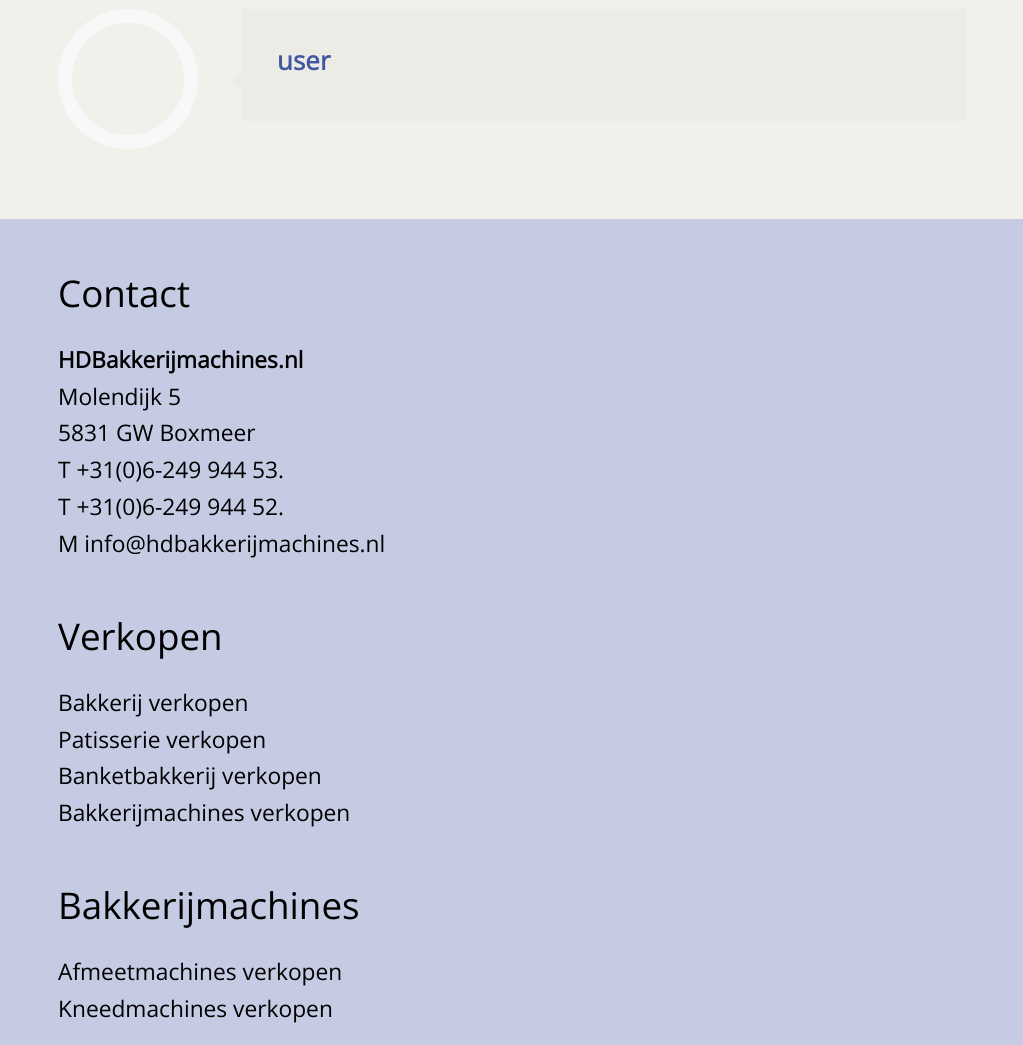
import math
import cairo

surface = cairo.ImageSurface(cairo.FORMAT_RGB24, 1023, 1045)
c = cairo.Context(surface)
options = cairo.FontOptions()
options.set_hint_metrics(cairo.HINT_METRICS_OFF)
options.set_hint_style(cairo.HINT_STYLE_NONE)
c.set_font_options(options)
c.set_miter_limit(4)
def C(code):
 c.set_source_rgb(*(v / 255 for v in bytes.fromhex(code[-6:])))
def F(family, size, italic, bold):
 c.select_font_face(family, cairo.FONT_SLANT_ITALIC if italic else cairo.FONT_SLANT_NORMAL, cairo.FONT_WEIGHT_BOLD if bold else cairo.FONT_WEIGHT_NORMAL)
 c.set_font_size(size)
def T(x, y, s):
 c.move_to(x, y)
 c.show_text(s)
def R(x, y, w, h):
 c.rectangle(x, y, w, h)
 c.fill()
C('f1f0eb')
c.paint()
c.arc(128,79,63,0,2 * math.pi)
C('f8f8f8')
c.set_line_width(14)
c.stroke()
C('ecebe6')
R(242,9,724,112)
F('Open Sans',26,0,1)
C('4056a1')
T(277,70,'user')
C('ecebe6')
c.new_path()
c.move_to(241.5,70)
c.line_to(241.5,91)
c.line_to(231,80.5)
c.close_path()
c.fill()
C('c5cbe3')
R(0,219,1023,826)
F('Open Sans',36.75,0,0)
C('000000')
T(58,307,'Contact')
F('Open Sans',22.75,0,1)
T(58,368,'HDBakkerijmachines.nl')
F('Open Sans',22.75,0,0)
T(58,405,'Molendijk 5')
T(58,441,'5831 GW Boxmeer')
T(58,478,'T +31(0)6-249 944 53.')
T(58,515,'T +31(0)6-249 944 52.')
T(58,552,'M info@hdbakkerijmachines.nl')
F('Open Sans',36.75,0,0)
T(58,650,'Verkopen')
F('Open Sans',22.75,0,0)
T(58,711,'Bakkerij verkopen')
T(58,748,'Patisserie verkopen')
T(58,784,'Banketbakkerij verkopen')
T(58,821,'Bakkerijmachines verkopen')
F('Open Sans',36.75,0,0)
T(58,919,'Bakkerijmachines')
F('Open Sans',22.75,0,0)
T(58,980,'Afmeetmachines verkopen')
T(58,1017,'Kneedmachines verkopen')
surface.write_to_png('o.png')
